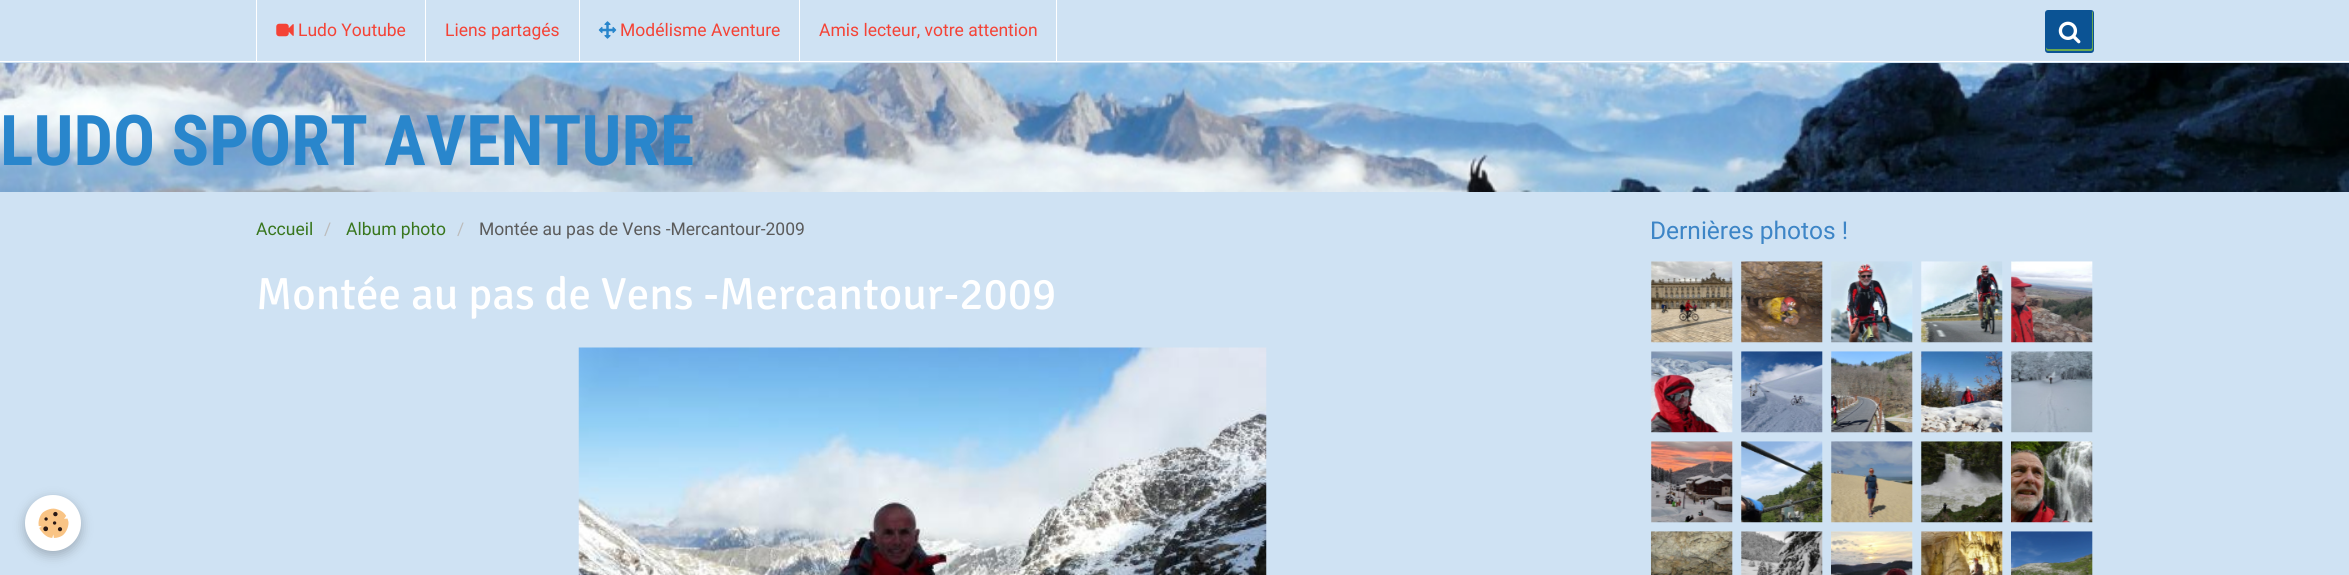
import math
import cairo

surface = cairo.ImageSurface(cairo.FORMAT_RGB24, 2349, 575)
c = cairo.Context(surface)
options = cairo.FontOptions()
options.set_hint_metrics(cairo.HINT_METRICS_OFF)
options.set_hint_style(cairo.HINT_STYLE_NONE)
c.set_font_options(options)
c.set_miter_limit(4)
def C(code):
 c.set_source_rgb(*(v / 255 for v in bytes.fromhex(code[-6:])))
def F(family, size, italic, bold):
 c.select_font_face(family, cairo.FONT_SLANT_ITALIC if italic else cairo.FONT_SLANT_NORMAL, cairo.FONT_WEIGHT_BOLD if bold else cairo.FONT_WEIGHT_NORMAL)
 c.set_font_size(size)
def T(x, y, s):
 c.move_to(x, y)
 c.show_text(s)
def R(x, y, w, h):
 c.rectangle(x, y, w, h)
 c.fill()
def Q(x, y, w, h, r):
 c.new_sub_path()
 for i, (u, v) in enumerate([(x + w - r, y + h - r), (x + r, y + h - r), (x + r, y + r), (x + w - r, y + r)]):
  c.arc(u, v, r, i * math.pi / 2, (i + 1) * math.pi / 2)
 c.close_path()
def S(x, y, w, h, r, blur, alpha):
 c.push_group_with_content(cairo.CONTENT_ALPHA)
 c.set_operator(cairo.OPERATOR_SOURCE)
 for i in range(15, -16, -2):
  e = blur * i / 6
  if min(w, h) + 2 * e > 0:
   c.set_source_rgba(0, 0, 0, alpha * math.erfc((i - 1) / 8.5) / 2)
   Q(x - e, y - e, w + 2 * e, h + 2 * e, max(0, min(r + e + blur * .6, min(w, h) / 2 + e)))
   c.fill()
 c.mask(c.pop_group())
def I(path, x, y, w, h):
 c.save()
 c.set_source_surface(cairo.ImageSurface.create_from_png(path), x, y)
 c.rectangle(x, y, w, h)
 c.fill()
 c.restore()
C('cfe2f3')
c.paint()
C('ffffff')
R(0,61,2349,1)
R(425,0,1,61)
R(256,0,1,61)
I('1.png',276,23,18,14)
F('Roboto',17.5,0,0)
C('f44336')
T(298,36,'Ludo Youtube')
C('ffffff')
R(579,0,1,61)
C('f44336')
T(445,36,'Liens partagés')
C('ffffff')
R(799,0,1,61)
I('2.png',598,21,19,18)
C('f44336')
T(620,36,'Modélisme Aventure')
C('ffffff')
R(1056,0,1,61)
C('f44336')
T(819,36,'Amis lecteur, votre attention')
C('0b5394')
Q(2045,10,49,43,3)
c.fill()
C('6aa84f')
c.new_path()
c.move_to(2046,47)
c.line_to(2046,49)
c.curve_to(2046,50,2047,51,2048,51)
c.line_to(2091,51)
c.curve_to(2092,51,2093,50,2093,49)
c.line_to(2093,13)
c.curve_to(2093,12,2093,12,2092,11)
c.line_to(2092,47)
c.curve_to(2092,48,2092,49,2090,49)
c.line_to(2048,49)
c.curve_to(2047,49,2046,48,2046,47)
c.close_path()
c.fill()
I('3.png',2058,21,23,23)
I('4.png',0,63,2349,129)
F('Roboto Condensed',70,0,1)
C('2986cc')
T(0,165,'LUDO SPORT AVENTURE')
F('Roboto',17.5,0,0)
C('38761d')
T(256,235,'Accueil')
C('bcbcbc')
T(324,235,'/')
C('38761d')
T(346,235,'Album photo')
C('bcbcbc')
T(457,235,'/')
C('5b5b5b')
T(479,235,'Montée au pas de Vens -Mercantour-2009')
F('Signika',45,0,0)
C('ffffff')
T(256,309,'Montée au pas de Vens -Mercantour-2009')
I('5.png',578,347,689,228)
F('Roboto',24.5,0,0)
C('3d85c6')
T(1650,239,'Dernières photos !')
I('6.png',1651,261,82,82)
I('7.png',1741,261,82,82)
I('8.png',1831,261,82,82)
I('9.png',1921,261,82,82)
I('10.png',2011,261,82,82)
I('11.png',1651,351,82,82)
I('12.png',1741,351,82,82)
I('13.png',1831,351,82,82)
I('14.png',1921,351,82,82)
I('15.png',2011,351,82,82)
I('16.png',1651,441,82,82)
I('17.png',1741,441,82,82)
I('18.png',1831,441,82,82)
I('19.png',1921,441,82,82)
I('20.png',2011,441,82,82)
I('21.png',1651,531,82,44)
I('22.png',1741,531,82,44)
I('23.png',1831,531,82,44)
I('24.png',1921,531,82,44)
I('25.png',2011,531,82,44)
C('000000')
S(25,499,56,56,28,6,.24)
C('ffffff')
c.arc(53,523,28,0,2 * math.pi)
c.fill()
I('26.png',38,508,31,30)
surface.write_to_png('o.png')
